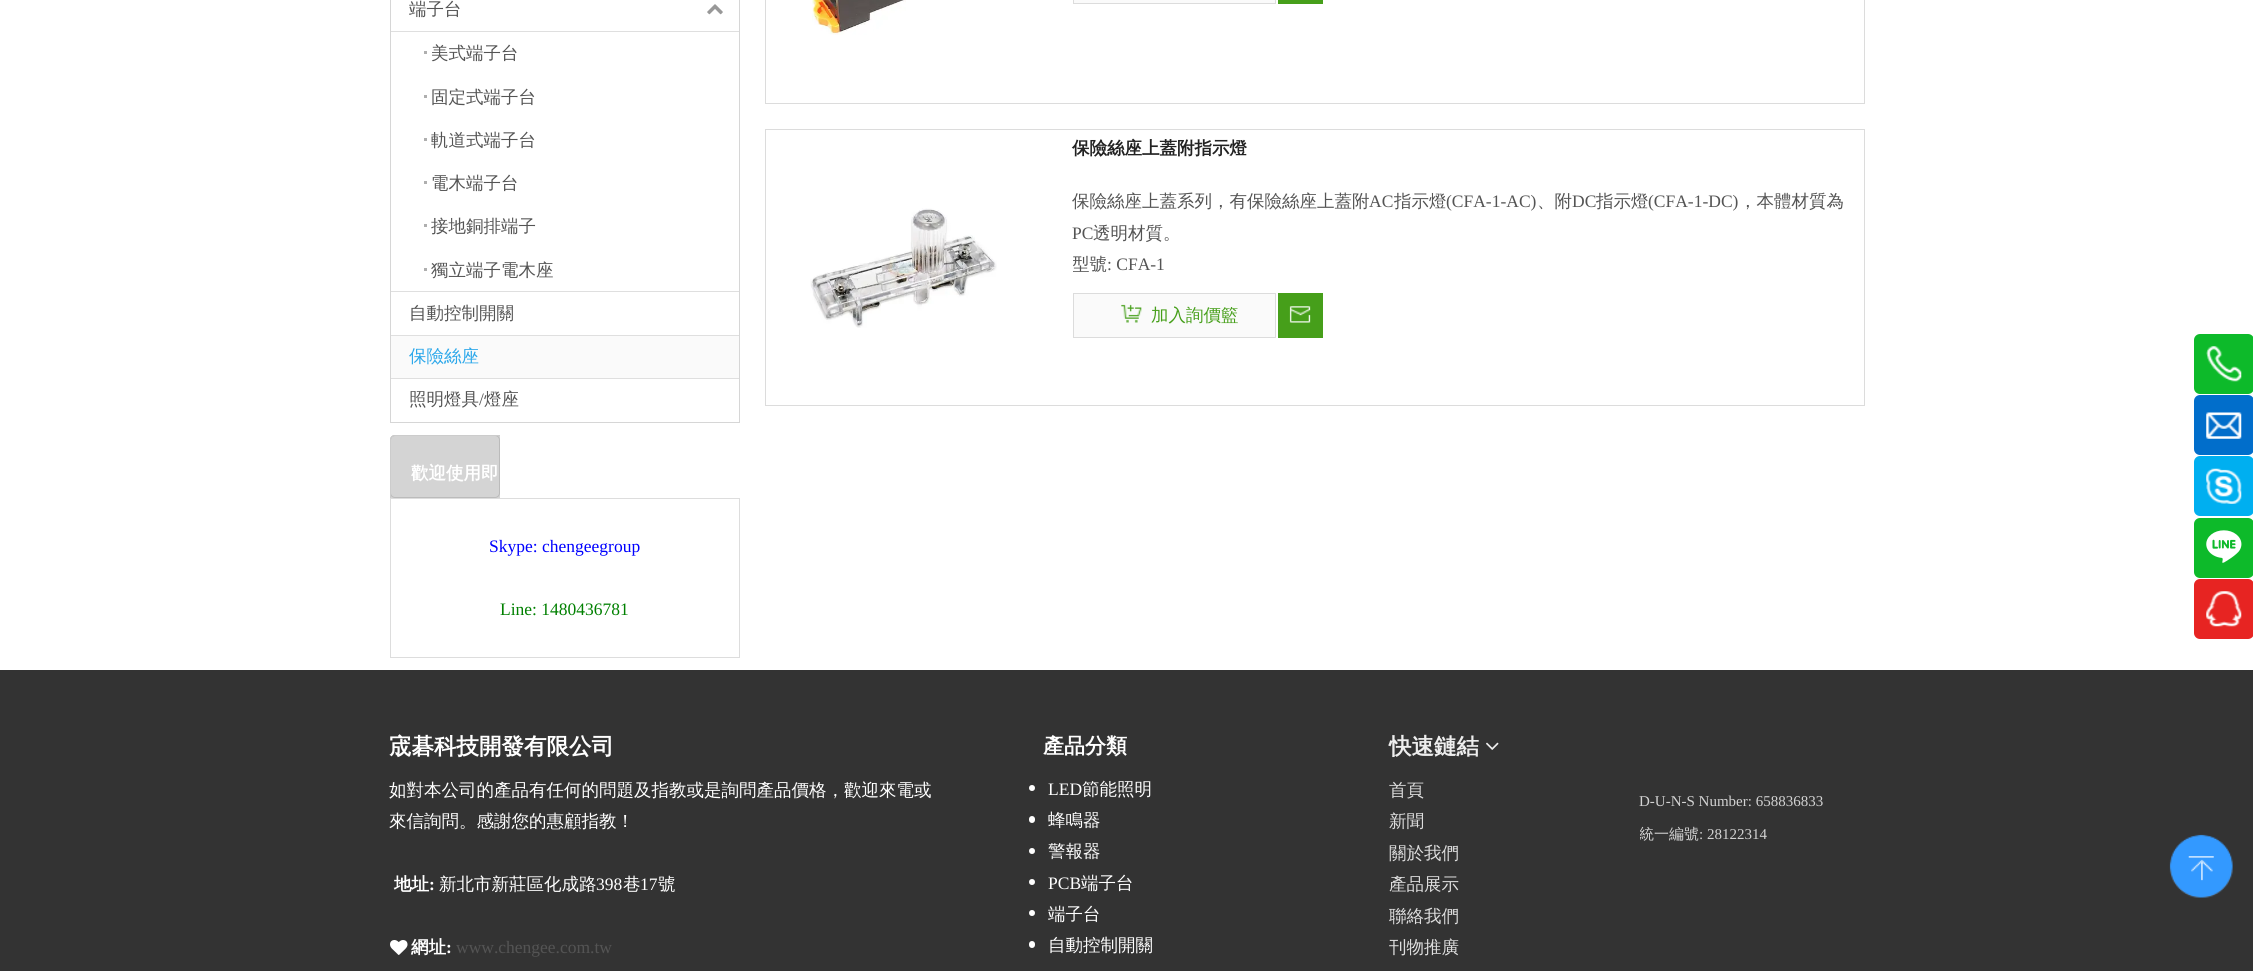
import math
import cairo

surface = cairo.ImageSurface(cairo.FORMAT_RGB24, 2253, 971)
c = cairo.Context(surface)
options = cairo.FontOptions()
options.set_hint_metrics(cairo.HINT_METRICS_OFF)
options.set_hint_style(cairo.HINT_STYLE_NONE)
c.set_font_options(options)
c.set_miter_limit(4)
def C(code):
 c.set_source_rgb(*(v / 255 for v in bytes.fromhex(code[-6:])))
def F(family, size, italic, bold):
 c.select_font_face(family, cairo.FONT_SLANT_ITALIC if italic else cairo.FONT_SLANT_NORMAL, cairo.FONT_WEIGHT_BOLD if bold else cairo.FONT_WEIGHT_NORMAL)
 c.set_font_size(size)
def T(x, y, s):
 c.move_to(x, y)
 c.show_text(s)
def R(x, y, w, h):
 c.rectangle(x, y, w, h)
 c.fill()
def Q(x, y, w, h, r):
 c.new_sub_path()
 for i, (u, v) in enumerate([(x + w - r, y + h - r), (x + r, y + h - r), (x + r, y + r), (x + w - r, y + r)]):
  c.arc(u, v, r, i * math.pi / 2, (i + 1) * math.pi / 2)
 c.close_path()
def I(path, x, y, w, h):
 c.save()
 c.set_source_surface(cairo.ImageSurface.create_from_png(path), x, y)
 c.rectangle(x, y, w, h)
 c.fill()
 c.restore()
C('ffffff')
c.paint()
c.rectangle(390.5,-.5,349,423)
C('d6d6d6')
c.set_line_width(1)
c.stroke()
F('WenQuanYi Zen Hei Medium',17.5,0,0)
C('545454')
T(409,15,'端子台')
I('1.png',707,4,16,11)
C('dfdfdf')
R(391,31,348,1)
C('afafaf')
R(424,51,3,3)
C('545454')
T(431,59,'美式端子台')
C('afafaf')
R(424,95,3,3)
C('545454')
T(431,103,'固定式端子台')
C('afafaf')
R(424,138,3,3)
C('545454')
T(431,146,'軌道式端子台')
C('afafaf')
R(424,181,3,3)
C('545454')
T(431,189,'電木端子台')
C('afafaf')
R(424,224,3,3)
C('545454')
T(431,232,'接地銅排端子')
C('afafaf')
R(424,268,3,3)
C('545454')
T(431,276,'獨立端子電木座')
C('dfdfdf')
R(391,291,348,1)
C('545454')
T(409,319,'自動控制開關')
C('dfdfdf')
R(391,335,348,1)
C('fafafa')
R(391,336,348,42)
C('2aa7ea')
T(409,362,'保險絲座')
C('dfdfdf')
R(391,378,348,1)
C('545454')
T(409,405,'照明燈具')
F('Liberation Serif',17.5,0,0)
T(479,405,'/')
F('WenQuanYi Zen Hei Medium',17.5,0,0)
T(484,405,'燈座')
Q(390.5,435.5,109,62,4.5)
C('cccccc')
c.stroke()
c.set_source_rgba(0.667,0.667,0.667,0.5)
c.new_path()
c.move_to(395,435)
c.line_to(500,435)
c.line_to(500,498)
c.line_to(390,498)
c.line_to(390,440)
c.curve_to(390,437,392,435,395,435)
c.close_path()
c.fill()
c.rectangle(390.5,498.5,349,159)
C('dddddd')
c.stroke()
c.save()
c.rectangle(390,435,110,63)
c.clip()
Q(390.5,435.5,129,82,4.5)
C('cccccc')
c.stroke()
c.restore()
F('WenQuanYi Zen Hei',17.5,0,1)
C('ffffff')
T(411,479,'歡迎使用即')
F('Liberation Serif',17.5,0,0)
C('0000ff')
T(489,552,'Skype: chengeegroup')
C('008000')
T(500,615,'Line: 1480436781')
c.rectangle(765.5,-.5,1099,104)
C('dcdcdc')
c.stroke()
I('2.png',812,0,94,35)
C('fafafa')
c.rectangle(1073.5,-.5,202,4)
c.fill_preserve()
C('dcdcdc')
c.stroke()
C('469f1a')
R(1278,0,45,4)
c.rectangle(765.5,129.5,1099,276)
C('dcdcdc')
c.stroke()
I('3.png',810,208,187,120)
F('WenQuanYi Zen Hei',17.5,0,1)
C('222222')
T(1072,154,'保險絲座上蓋附指示燈')
F('WenQuanYi Zen Hei Medium',17.5,0,0)
C('545454')
T(1072,207,'保險絲座上蓋系列，有保險絲座上蓋附')
F('Liberation Serif',17.5,0,0)
T(1369,207,'AC')
F('WenQuanYi Zen Hei Medium',17.5,0,0)
T(1394,207,'指示燈')
F('Liberation Serif',17.5,0,0)
T(1446,207,'(CFA-1-AC)')
F('WenQuanYi Zen Hei Medium',17.5,0,0)
T(1537,207,'、附')
F('Liberation Serif',17.5,0,0)
T(1572,207,'DC')
F('WenQuanYi Zen Hei Medium',17.5,0,0)
T(1596,207,'指示燈')
F('Liberation Serif',17.5,0,0)
T(1648,207,'(CFA-1-DC)')
F('WenQuanYi Zen Hei Medium',17.5,0,0)
T(1739,207,'，本體材質為')
F('Liberation Serif',17.5,0,0)
T(1072,239,'PC')
F('WenQuanYi Zen Hei Medium',17.5,0,0)
T(1093,239,'透明材質。')
c.save()
c.rectangle(1073,249,791,31)
c.clip()
T(1072,270,'型號')
c.restore()
F('Liberation Serif',17.5,0,0)
T(1107,270,': CFA-1')
C('fafafa')
c.rectangle(1073.5,293.5,202,44)
c.fill_preserve()
C('dcdcdc')
c.stroke()
I('4.png',1121,304,21,19)
F('WenQuanYi Zen Hei Medium',17.5,0,0)
C('469f1a')
T(1151,321,'加入詢價籃')
R(1278,293,45,45)
I('5.png',1289,306,22,17)
C('333333')
R(0,670,2253,301)
C('0dba2a')
Q(2194,334,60,60,6)
c.fill()
I('6.png',2206,346,36,36)
C('016ecb')
Q(2194,395,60,60,6)
c.fill()
I('7.png',2206,412,36,27)
C('00aff0')
Q(2194,456,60,60,6)
c.fill()
I('8.png',2206,468,36,36)
C('0dba2a')
Q(2194,518,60,60,6)
c.fill()
I('9.png',2206,530,36,33)
C('e72422')
Q(2194,579,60,60,6)
c.fill()
I('10.png',2206,591,36,36)
F('WenQuanYi Zen Hei',22.5,0,1)
C('ffffff')
T(389,754,'宬碁科技開發有限公司')
F('WenQuanYi Zen Hei Medium',17.5,0,0)
T(389,796,'如對本公司的產品有任何的問題及指教或是詢問產品價格，歡迎來電或')
T(389,827,'來信詢問。感謝您的惠顧指教！')
F('WenQuanYi Zen Hei',17.5,0,1)
T(394,890,'地址')
F('Liberation Serif',17.5,0,1)
T(429,890,':')
F('WenQuanYi Zen Hei Medium',17.5,0,0)
T(439,890,'新北市新莊區化成路')
F('Liberation Serif',17.5,0,0)
T(596,890,'398')
F('WenQuanYi Zen Hei Medium',17.5,0,0)
T(623,890,'巷')
F('Liberation Serif',17.5,0,0)
T(640,890,'17')
F('WenQuanYi Zen Hei Medium',17.5,0,0)
T(658,890,'號')
I('11.png',390,940,18,15)
F('WenQuanYi Zen Hei',17.5,0,1)
T(411,953,'網址')
F('Liberation Serif',17.5,0,1)
T(446,953,':')
F('Liberation Serif',17.5,0,0)
C('545454')
T(456,953,'www.chengee.com.tw')
F('WenQuanYi Zen Hei',21,0,1)
C('ffffff')
T(1043,753,'產品分類')
c.new_path()
c.arc(1032,788,3,0,2 * math.pi)
c.fill()
F('Liberation Serif',17.5,0,0)
T(1048,795,'LED')
F('WenQuanYi Zen Hei Medium',17.5,0,0)
T(1082,795,'節能照明')
Q(1029,816,6,7,3)
c.fill()
T(1048,826,'蜂鳴器')
c.new_path()
c.arc(1032,851,3,0,2 * math.pi)
c.fill()
T(1048,857,'警報器')
c.new_path()
c.arc(1032,882,3,0,2 * math.pi)
c.fill()
F('Liberation Serif',17.5,0,0)
T(1048,889,'PCB')
F('WenQuanYi Zen Hei Medium',17.5,0,0)
T(1081,889,'端子台')
c.new_path()
c.arc(1032,913,3,0,2 * math.pi)
c.fill()
T(1048,920,'端子台')
Q(1029,941,6,7,3)
c.fill()
T(1048,951,'自動控制開關')
F('WenQuanYi Zen Hei',22.5,0,1)
C('eeeeee')
T(1389,754,'快速鏈結')
I('12.png',1486,742,13,8)
F('WenQuanYi Zen Hei Medium',17.5,0,0)
C('dddddd')
T(1389,796,'首頁')
T(1389,827,'新聞')
T(1389,859,'關於我們')
T(1389,890,'產品展示')
T(1389,922,'聯絡我們')
T(1389,953,'刊物推廣')
F('Liberation Serif',15,0,0)
C('d3d3d3')
T(1639,806,'D-U-N-S Number: 658836833')
c.save()
c.rectangle(1640,754,195,96)
c.clip()
F('WenQuanYi Zen Hei Medium',15,0,0)
T(1639,839,'統一編號')
c.restore()
T(1699,839,': 28122314')
I('13.png',2169,834,64,64)
surface.write_to_png('o.png')
